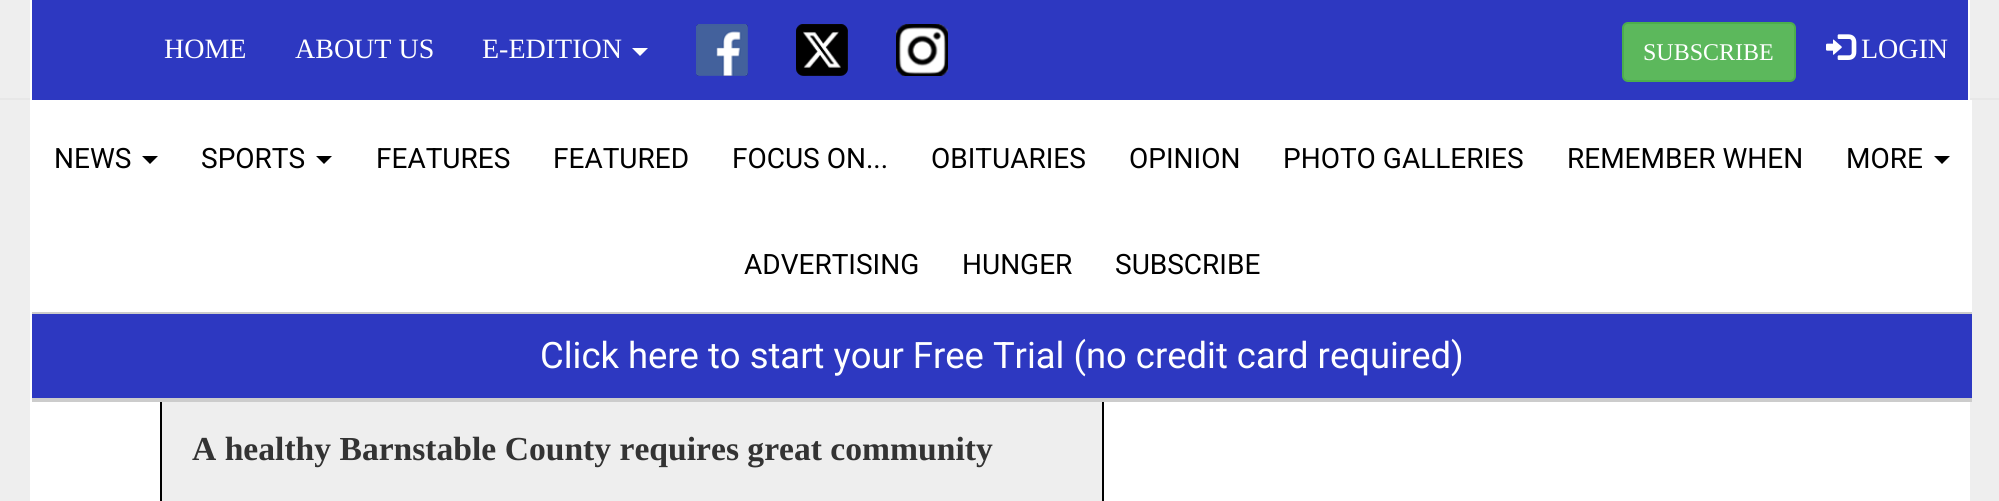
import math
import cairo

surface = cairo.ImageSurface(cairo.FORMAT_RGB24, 1999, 501)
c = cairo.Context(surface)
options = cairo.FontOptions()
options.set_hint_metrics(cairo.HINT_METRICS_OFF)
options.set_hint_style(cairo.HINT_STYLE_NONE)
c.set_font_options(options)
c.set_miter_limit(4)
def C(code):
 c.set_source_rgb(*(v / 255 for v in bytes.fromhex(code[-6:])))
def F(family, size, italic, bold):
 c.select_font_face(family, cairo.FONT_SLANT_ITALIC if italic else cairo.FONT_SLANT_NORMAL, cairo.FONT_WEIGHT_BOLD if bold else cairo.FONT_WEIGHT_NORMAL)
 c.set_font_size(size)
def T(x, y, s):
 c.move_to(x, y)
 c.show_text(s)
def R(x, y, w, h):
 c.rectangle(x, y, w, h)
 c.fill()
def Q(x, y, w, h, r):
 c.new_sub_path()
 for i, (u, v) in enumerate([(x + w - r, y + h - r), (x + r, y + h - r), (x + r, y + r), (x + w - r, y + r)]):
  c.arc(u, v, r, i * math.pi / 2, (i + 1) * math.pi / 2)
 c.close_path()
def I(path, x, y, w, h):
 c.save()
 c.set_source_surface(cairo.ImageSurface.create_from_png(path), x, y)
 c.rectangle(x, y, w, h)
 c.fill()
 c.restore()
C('eeeeee')
c.paint()
C('ffffff')
R(1968,100,2,401)
R(30,100,1938,401)
C('e7e7e7')
R(0,98,1999,2)
C('2d38c1')
R(32,0,1936,100)
C('ffffff')
R(1968,0,2,100)
R(30,0,2,100)
F('Liberation Serif',28,0,0)
T(164,58,'HOME')
T(295,58,'ABOUT US')
T(482,58,'E-EDITION')
c.new_path()
c.move_to(632,48)
c.line_to(648,48)
c.line_to(640,56)
c.close_path()
c.fill()
I('1.png',696,24,52,52)
I('2.png',796,24,52,52)
I('3.png',896,24,52,52)
C('5cb85c')
Q(1623,23,172,58,5)
c.fill_preserve()
C('4cae4c')
c.stroke()
F('Liberation Serif',24,0,0)
C('ffffff')
T(1643,60,'SUBSCRIBE')
I('4.png',1826,34,31,26)
F('Liberation Serif',28,0,0)
T(1861,58,'LOGIN')
c.set_source_rgba(1,1,1,0.97)
R(1970,100,2,212)
C('eeeeee')
R(162,402,940,99)
c.rectangle(161,395,942,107)
C('000000')
c.stroke()
C('cccccc')
R(32,398,1940,4)
F('Roboto',28,0,0)
C('000000')
T(54,168,'NEWS')
c.new_path()
c.move_to(142,156)
c.line_to(158,156)
c.line_to(150,164)
c.close_path()
c.fill()
T(201,168,'SPORTS')
c.new_path()
c.move_to(316,156)
c.line_to(332,156)
c.line_to(324,164)
c.close_path()
c.fill()
T(376,168,'FEATURES')
T(553,168,'FEATURED')
T(732,168,'FOCUS ON...')
T(931,168,'OBITUARIES')
T(1129,168,'OPINION')
T(1283,168,'PHOTO GALLERIES')
T(1567,168,'REMEMBER WHEN')
T(1846,168,'MORE')
c.new_path()
c.move_to(1934,156)
c.line_to(1950,156)
c.line_to(1942,164)
c.close_path()
c.fill()
T(744,274,'ADVERTISING')
T(962,274,'HUNGER')
T(1115,274,'SUBSCRIBE')
C('2d38c1')
R(32,314,1940,84)
C('cccccc')
R(32,312,1940,2)
F('Roboto',36.4,0,0)
C('ffffff')
T(540,368,'Click here to start your Free Trial (no credit card required)')
F('Liberation Serif',33.6,0,1)
C('333333')
T(192,460,'A healthy Barnstable County requires great community')
surface.write_to_png('o.png')
